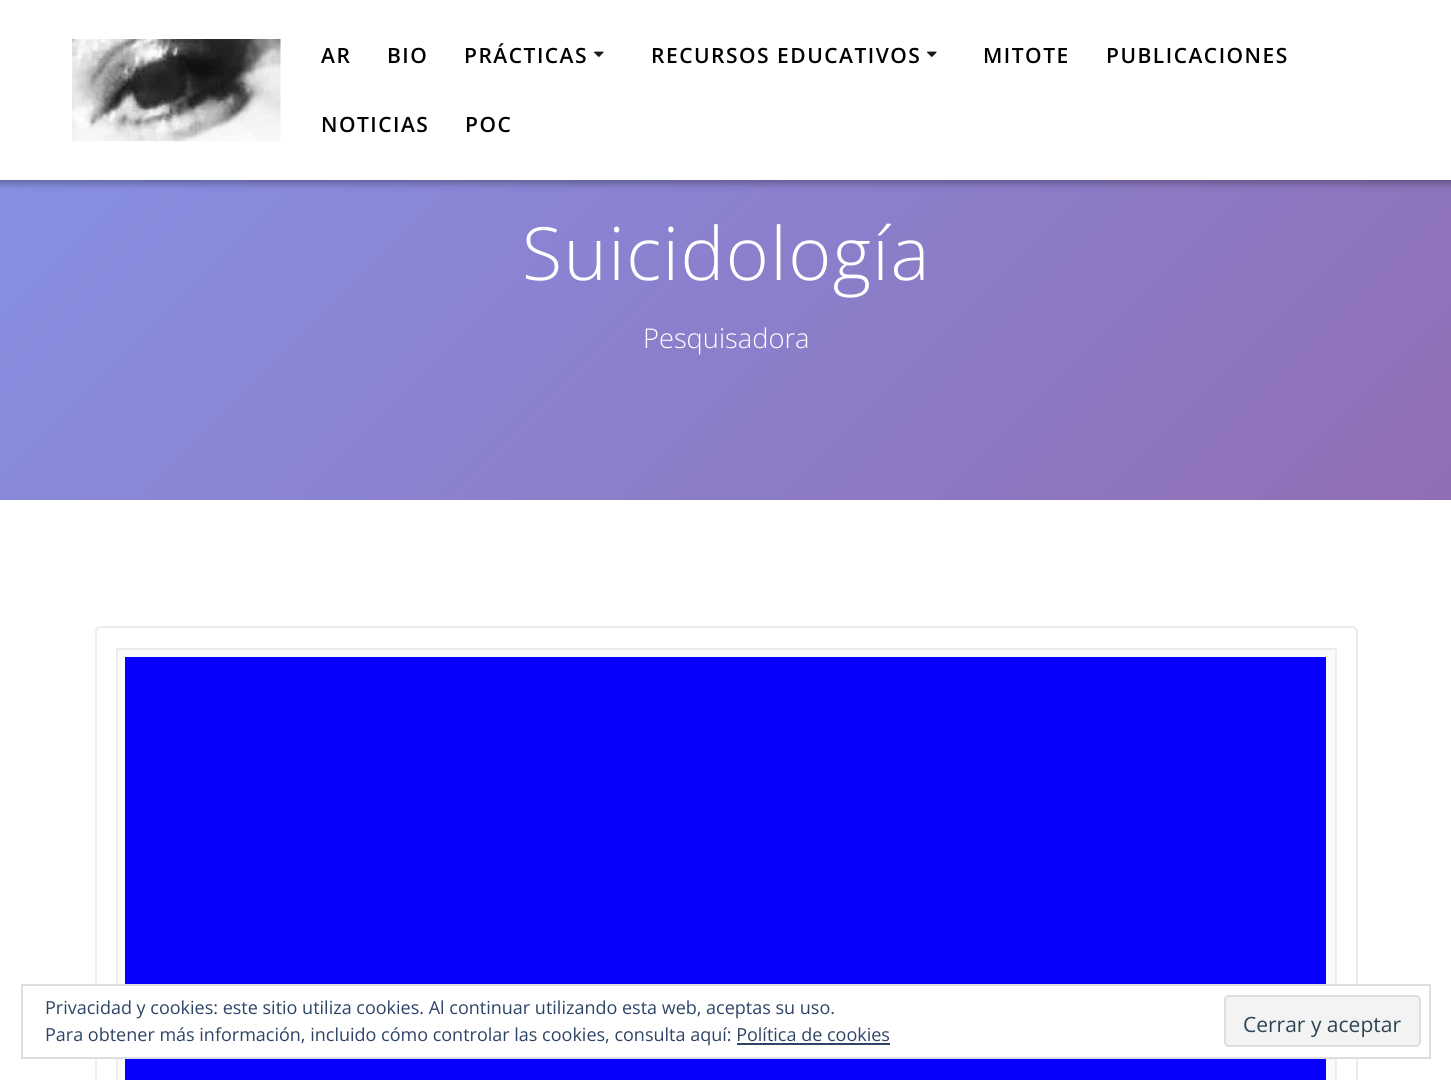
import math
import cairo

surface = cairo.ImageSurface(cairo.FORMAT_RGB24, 1451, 1080)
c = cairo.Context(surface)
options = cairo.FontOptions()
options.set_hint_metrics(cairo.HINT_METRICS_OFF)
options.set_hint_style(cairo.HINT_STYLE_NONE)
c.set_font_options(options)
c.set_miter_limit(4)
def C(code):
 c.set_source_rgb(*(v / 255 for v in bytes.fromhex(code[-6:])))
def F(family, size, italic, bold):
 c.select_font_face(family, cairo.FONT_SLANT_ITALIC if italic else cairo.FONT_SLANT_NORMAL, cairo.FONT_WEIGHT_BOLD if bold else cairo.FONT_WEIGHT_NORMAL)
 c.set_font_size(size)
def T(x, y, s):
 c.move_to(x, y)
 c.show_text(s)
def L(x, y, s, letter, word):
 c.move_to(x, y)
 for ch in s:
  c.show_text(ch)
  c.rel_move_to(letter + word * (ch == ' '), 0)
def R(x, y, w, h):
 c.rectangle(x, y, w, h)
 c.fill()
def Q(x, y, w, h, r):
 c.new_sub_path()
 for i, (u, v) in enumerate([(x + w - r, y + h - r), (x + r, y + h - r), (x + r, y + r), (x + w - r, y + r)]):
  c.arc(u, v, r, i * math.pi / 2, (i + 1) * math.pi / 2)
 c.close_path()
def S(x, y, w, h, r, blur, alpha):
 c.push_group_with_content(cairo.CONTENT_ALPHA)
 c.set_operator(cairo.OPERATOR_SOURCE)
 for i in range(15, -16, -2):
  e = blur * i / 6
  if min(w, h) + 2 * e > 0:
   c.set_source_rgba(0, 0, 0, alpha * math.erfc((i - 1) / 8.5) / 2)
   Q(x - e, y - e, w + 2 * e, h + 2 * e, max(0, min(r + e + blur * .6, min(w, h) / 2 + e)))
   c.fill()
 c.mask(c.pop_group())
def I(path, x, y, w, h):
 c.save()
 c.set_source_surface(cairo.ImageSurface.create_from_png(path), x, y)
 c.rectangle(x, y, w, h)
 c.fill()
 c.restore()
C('ffffff')
c.paint()
gradient = cairo.LinearGradient(181,-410,1271,680)
gradient.add_color_stop_rgba(0,0.518,0.592,0.929,1)
gradient.add_color_stop_rgba(1,0.565,0.431,0.706,1)
c.set_source(gradient)
R(0,180,1451,320)
C('000000')
S(-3,-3,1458,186,0,4,.33)
C('ffffff')
R(0,0,1451,180)
I('1.png',72,39,209,103)
F('Open Sans SemiBold',21,0,0)
C('000000')
L(321,63,'AR',1.5,0)
L(387,63,'BIO',1.5,0)
L(464,63,'PRÁCTICAS',1.5,0)
I('2.png',594,51,10,6)
L(651,63,'RECURSOS EDUCATIVOS',1.5,0)
I('2.png',927,51,10,6)
L(983,63,'MITOTE',1.5,0)
L(1106,63,'PUBLICACIONES',1.5,0)
L(321,132,'NOTICIAS',1.5,0)
L(465,132,'POC',1.5,0)
F('Open Sans Light',73.5,0,0)
C('ffffff')
L(522,280,'Suicidología',1.4,0)
F('Open Sans Light',27.25,0,0)
T(643,348,'Pesquisadora')
Q(96,627,1261,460,5)
C('ececec')
c.stroke()
C('fafafa')
c.rectangle(117,649,1219,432)
c.fill_preserve()
C('ececec')
c.stroke()
C('0700ff')
R(125,657,1201,423)
C('ffffff')
R(95,986,1263,71)
c.rectangle(22,985,1408,73)
C('dedede')
c.stroke()
F('Open Sans',18,0,0)
C('2e4467')
T(45,1014,'Privacidad y cookies: este sitio utiliza cookies. Al continuar utilizando esta web, aceptas su uso.')
T(45,1041,'Para obtener más información, incluido cómo controlar las cookies, consulta aquí: Política de cookies')
C('f3f3f3')
Q(1225,996,195,50,4)
c.fill_preserve()
C('dedede')
c.stroke()
F('Open Sans',21,0,0)
C('2e4453')
T(1243,1032,'Cerrar y aceptar')
C('2e4467')
R(737,1043,153,2)
surface.write_to_png('o.png')
